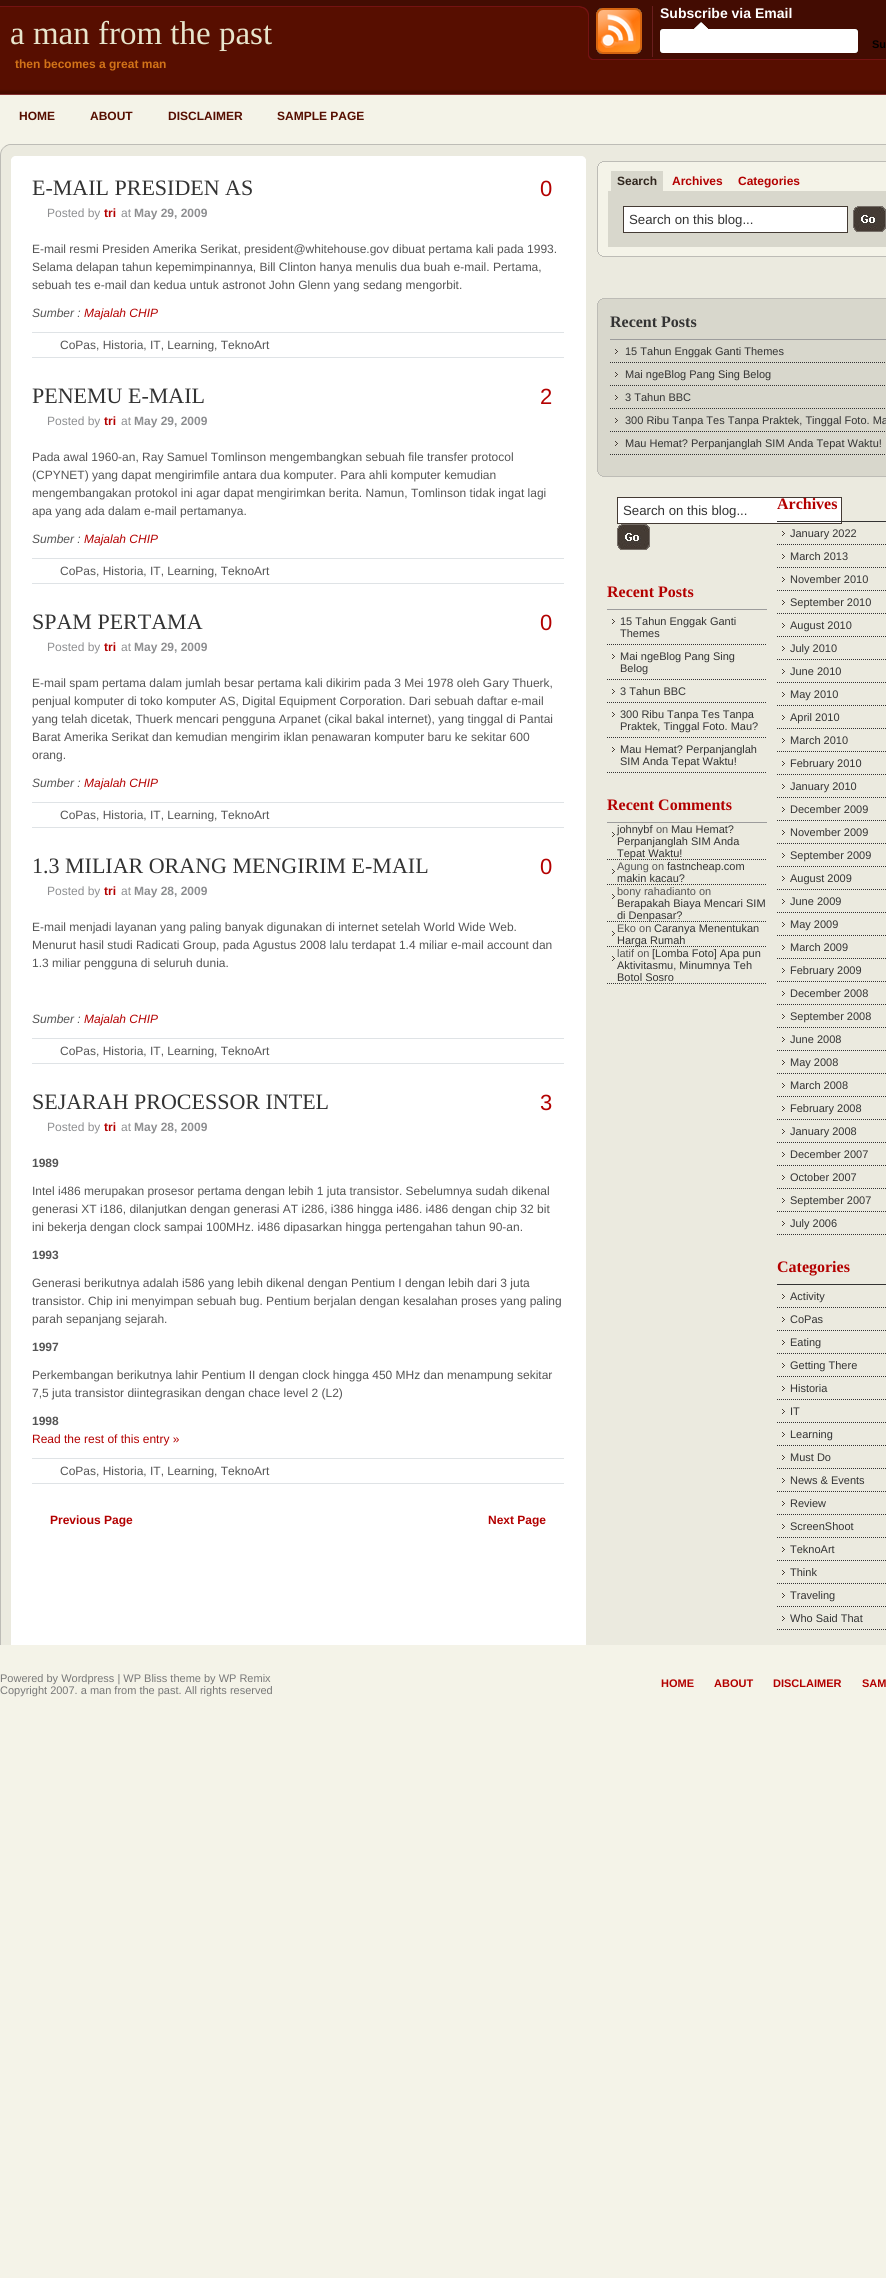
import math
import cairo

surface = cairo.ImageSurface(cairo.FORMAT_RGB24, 886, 2278)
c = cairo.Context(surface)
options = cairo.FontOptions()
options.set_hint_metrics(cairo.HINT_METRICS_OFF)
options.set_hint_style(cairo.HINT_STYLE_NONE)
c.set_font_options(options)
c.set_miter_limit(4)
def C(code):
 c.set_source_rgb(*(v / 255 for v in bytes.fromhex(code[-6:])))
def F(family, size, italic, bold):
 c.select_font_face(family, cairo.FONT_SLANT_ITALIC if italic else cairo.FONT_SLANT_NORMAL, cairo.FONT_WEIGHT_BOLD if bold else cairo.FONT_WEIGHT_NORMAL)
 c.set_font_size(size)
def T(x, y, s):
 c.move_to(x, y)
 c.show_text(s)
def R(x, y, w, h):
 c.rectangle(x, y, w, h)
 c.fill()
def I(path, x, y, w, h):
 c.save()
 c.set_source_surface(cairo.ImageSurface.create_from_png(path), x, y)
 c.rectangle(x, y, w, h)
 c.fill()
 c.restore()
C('f4f3e8')
c.paint()
I('1.png',0,0,886,95)
F('Liberation Serif',33,0,0)
C('e8e5cc')
T(10,44,'a man from the past')
I('2.png',579,6,307,54)
I('3.png',596,8,46,46)
F('Liberation Sans',14,0,1)
C('ffffff')
T(660,18,'Subscribe via Email')
I('4.png',660,22,198,31)
F('Liberation Sans',11,0,1)
C('000000')
T(872,48,'Su')
F('Liberation Sans',12,0,1)
C('d27318')
T(15,68,'then becomes a great man')
C('560e00')
T(19,120,'HOME')
T(90,120,'ABOUT')
T(168,120,'DISCLAIMER')
T(277,120,'SAMPLE PAGE')
I('5.png',0,144,886,17)
I('6.png',0,161,886,1484)
F('Liberation Serif',22,0,0)
C('333333')
T(32,195,'E-MAIL PRESIDEN AS')
F('Liberation Sans',22,0,0)
C('b30000')
T(540,196,'0')
F('Liberation Sans',12,0,0)
C('8e8f91')
T(47,217,'Posted by')
F('Liberation Sans',12,0,1)
C('b30000')
T(104,217,'tri')
F('Liberation Sans',12,0,0)
C('8e8f91')
T(121,217,'at')
F('Liberation Sans',12,0,1)
T(134,217,'May 29, 2009')
F('Liberation Sans',12,0,0)
C('555555')
T(32,253,'E-mail resmi Presiden Amerika Serikat, president@whitehouse.gov dibuat pertama kali pada 1993.')
T(32,271,'Selama delapan tahun kepemimpinannya, Bill Clinton hanya menulis dua buah e-mail. Pertama,')
T(32,289,'sebuah tes e-mail dan kedua untuk astronot John Glenn yang sedang mengorbit.')
F('Liberation Sans',12,1,0)
T(32,317,'Sumber :')
C('b30000')
T(84,317,'Majalah CHIP')
C('dfe3e6')
R(32,332,532,1)
R(32,357,532,1)
F('Liberation Sans',12,0,0)
C('555555')
T(60,349,'CoPas, Historia, IT, Learning, TeknoArt')
F('Liberation Serif',22,0,0)
C('333333')
T(32,403,'PENEMU E-MAIL')
F('Liberation Sans',22,0,0)
C('b30000')
T(540,404,'2')
F('Liberation Sans',12,0,0)
C('8e8f91')
T(47,425,'Posted by')
F('Liberation Sans',12,0,1)
C('b30000')
T(104,425,'tri')
F('Liberation Sans',12,0,0)
C('8e8f91')
T(121,425,'at')
F('Liberation Sans',12,0,1)
T(134,425,'May 29, 2009')
F('Liberation Sans',12,0,0)
C('555555')
T(32,461,'Pada awal 1960-an, Ray Samuel Tomlinson mengembangkan sebuah file transfer protocol')
T(32,479,'(CPYNET) yang dapat mengirimfile antara dua komputer. Para ahli komputer kemudian')
T(32,497,'mengembangakan protokol ini agar dapat mengirimkan berita. Namun, Tomlinson tidak ingat lagi')
T(32,515,'apa yang ada dalam e-mail pertamanya.')
F('Liberation Sans',12,1,0)
T(32,543,'Sumber :')
C('b30000')
T(84,543,'Majalah CHIP')
C('dfe3e6')
R(32,558,532,1)
R(32,583,532,1)
F('Liberation Sans',12,0,0)
C('555555')
T(60,575,'CoPas, Historia, IT, Learning, TeknoArt')
F('Liberation Serif',22,0,0)
C('333333')
T(32,629,'SPAM PERTAMA')
F('Liberation Sans',22,0,0)
C('b30000')
T(540,630,'0')
F('Liberation Sans',12,0,0)
C('8e8f91')
T(47,651,'Posted by')
F('Liberation Sans',12,0,1)
C('b30000')
T(104,651,'tri')
F('Liberation Sans',12,0,0)
C('8e8f91')
T(121,651,'at')
F('Liberation Sans',12,0,1)
T(134,651,'May 29, 2009')
F('Liberation Sans',12,0,0)
C('555555')
T(32,687,'E-mail spam pertama dalam jumlah besar pertama kali dikirim pada 3 Mei 1978 oleh Gary Thuerk,')
T(32,705,'penjual komputer di toko komputer AS, Digital Equipment Corporation. Dari sebuah daftar e-mail')
T(32,723,'yang telah dicetak, Thuerk mencari pengguna Arpanet (cikal bakal internet), yang tinggal di Pantai')
T(32,741,'Barat Amerika Serikat dan kemudian mengirim iklan penawaran komputer baru ke sekitar 600')
T(32,759,'orang.')
F('Liberation Sans',12,1,0)
T(32,787,'Sumber :')
C('b30000')
T(84,787,'Majalah CHIP')
C('dfe3e6')
R(32,802,532,1)
R(32,827,532,1)
F('Liberation Sans',12,0,0)
C('555555')
T(60,819,'CoPas, Historia, IT, Learning, TeknoArt')
F('Liberation Serif',22,0,0)
C('333333')
T(32,873,'1.3 MILIAR ORANG MENGIRIM E-MAIL')
F('Liberation Sans',22,0,0)
C('b30000')
T(540,874,'0')
F('Liberation Sans',12,0,0)
C('8e8f91')
T(47,895,'Posted by')
F('Liberation Sans',12,0,1)
C('b30000')
T(104,895,'tri')
F('Liberation Sans',12,0,0)
C('8e8f91')
T(121,895,'at')
F('Liberation Sans',12,0,1)
T(134,895,'May 28, 2009')
F('Liberation Sans',12,0,0)
C('555555')
T(32,931,'E-mail menjadi layanan yang paling banyak digunakan di internet setelah World Wide Web.')
T(32,949,'Menurut hasil studi Radicati Group, pada Agustus 2008 lalu terdapat 1.4 miliar e-mail account dan')
T(32,967,'1.3 miliar pengguna di seluruh dunia.')
F('Liberation Sans',12,1,0)
T(32,1023,'Sumber :')
C('b30000')
T(84,1023,'Majalah CHIP')
C('dfe3e6')
R(32,1038,532,1)
R(32,1063,532,1)
F('Liberation Sans',12,0,0)
C('555555')
T(60,1055,'CoPas, Historia, IT, Learning, TeknoArt')
F('Liberation Serif',22,0,0)
C('333333')
T(32,1109,'SEJARAH PROCESSOR INTEL')
F('Liberation Sans',22,0,0)
C('b30000')
T(540,1110,'3')
F('Liberation Sans',12,0,0)
C('8e8f91')
T(47,1131,'Posted by')
F('Liberation Sans',12,0,1)
C('b30000')
T(104,1131,'tri')
F('Liberation Sans',12,0,0)
C('8e8f91')
T(121,1131,'at')
F('Liberation Sans',12,0,1)
T(134,1131,'May 28, 2009')
C('555555')
T(32,1167,'1989')
F('Liberation Sans',12,0,0)
T(32,1195,'Intel i486 merupakan prosesor pertama dengan lebih 1 juta transistor. Sebelumnya sudah dikenal')
T(32,1213,'generasi XT i186, dilanjutkan dengan generasi AT i286, i386 hingga i486. i486 dengan chip 32 bit')
T(32,1231,'ini bekerja dengan clock sampai 100MHz. i486 dipasarkan hingga pertengahan tahun 90-an.')
F('Liberation Sans',12,0,1)
T(32,1259,'1993')
F('Liberation Sans',12,0,0)
T(32,1287,'Generasi berikutnya adalah i586 yang lebih dikenal dengan Pentium I dengan lebih dari 3 juta')
T(32,1305,'transistor. Chip ini menyimpan sebuah bug. Pentium berjalan dengan kesalahan proses yang paling')
T(32,1323,'parah sepanjang sejarah.')
F('Liberation Sans',12,0,1)
T(32,1351,'1997')
F('Liberation Sans',12,0,0)
T(32,1379,'Perkembangan berikutnya lahir Pentium II dengan clock hingga 450 MHz dan menampung sekitar')
T(32,1397,'7,5 juta transistor diintegrasikan dengan chace level 2 (L2)')
F('Liberation Sans',12,0,1)
T(32,1425,'1998')
F('Liberation Sans',12,0,0)
C('b30000')
T(32,1443,'Read the rest of this entry »')
C('dfe3e6')
R(32,1458,532,1)
R(32,1483,532,1)
C('555555')
T(60,1475,'CoPas, Historia, IT, Learning, TeknoArt')
F('Liberation Sans',12,0,1)
C('b30000')
T(50,1524,'Previous Page')
T(488,1524,'Next Page')
C('bdbcb6')
R(602,161,284,1)
C('f4f3e8')
R(600,162,286,1)
C('bdbcb6')
R(600,162,2,1)
C('f4f3e8')
R(599,163,287,1)
C('bdbcb6')
R(599,163,1,1)
C('f4f3e8')
R(598,164,288,2)
C('bdbcb6')
R(598,164,1,2)
C('f4f3e8')
R(598,166,288,86)
C('bdbcb6')
R(597,166,1,86)
C('d8d7cc')
R(611,171,52,20)
C('30261e')
T(617,185,'Search')
C('b30000')
T(672,185,'Archives')
T(738,185,'Categories')
C('d8d7cc')
R(608,191,278,56)
C('ffffff')
c.rectangle(623.5,206.5,224,26)
c.fill_preserve()
C('443b34')
c.set_line_width(1)
c.stroke()
F('Liberation Sans',13.25,0,0)
C('333333')
T(629,224,'Search on this blog...')
I('7.png',853,206,33,26)
C('f4f3e8')
R(598,252,288,2)
C('bdbcb6')
R(598,252,1,2)
C('f4f3e8')
R(599,254,287,1)
C('bdbcb6')
R(599,254,1,1)
C('f4f3e8')
R(600,255,286,1)
C('bdbcb6')
R(600,255,2,1)
R(602,256,284,1)
R(602,298,284,1)
C('d8d7cc')
R(600,299,286,1)
C('bdbcb6')
R(600,299,2,1)
C('d8d7cc')
R(599,300,287,1)
C('bdbcb6')
R(599,300,1,1)
C('d8d7cc')
R(598,301,288,2)
C('bdbcb6')
R(598,301,1,2)
C('d8d7cc')
R(598,303,288,169)
C('bdbcb6')
R(597,303,1,169)
F('Liberation Serif',16,0,1)
C('333333')
T(610,327,'Recent Posts')
C('9c9c9c')
R(610,339,276,1)
I('8.png',615,349,3,5)
c.new_path()
c.move_to(610,362.5)
c.line_to(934,362.5)
C('333333')
c.set_dash([1,1])
c.stroke()
F('Liberation Sans',11,0,0)
T(625,355,'15 Tahun Enggak Ganti Themes')
I('8.png',615,372,3,5)
c.new_path()
c.move_to(610,385.5)
c.line_to(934,385.5)
c.stroke()
T(625,378,'Mai ngeBlog Pang Sing Belog')
I('8.png',615,395,3,5)
c.new_path()
c.move_to(610,408.5)
c.line_to(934,408.5)
c.stroke()
T(625,401,'3 Tahun BBC')
I('8.png',615,418,3,5)
c.new_path()
c.move_to(610,431.5)
c.line_to(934,431.5)
c.stroke()
T(625,424,'300 Ribu Tanpa Tes Tanpa Praktek, Tinggal Foto. Ma')
I('8.png',615,441,3,5)
c.new_path()
c.move_to(610,454.5)
c.line_to(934,454.5)
c.stroke()
T(625,447,'Mau Hemat? Perpanjanglah SIM Anda Tepat Waktu!')
C('d8d7cc')
R(598,472,288,2)
C('bdbcb6')
R(598,472,1,2)
C('d8d7cc')
R(599,474,287,1)
C('bdbcb6')
R(599,474,1,1)
C('d8d7cc')
R(600,475,286,1)
C('bdbcb6')
R(600,475,2,1)
R(602,476,284,1)
C('ffffff')
c.rectangle(617.5,497.5,224,26)
c.fill_preserve()
C('443b34')
c.set_dash([])
c.stroke()
F('Liberation Sans',13.25,0,0)
C('333333')
T(623,515,'Search on this blog...')
I('9.png',617,524,33,26)
F('Liberation Serif',16,0,1)
C('b30000')
T(607,597,'Recent Posts')
C('9c9c9c')
R(607,609,160,1)
I('10.png',612,619,3,5)
c.new_path()
c.move_to(607,644.5)
c.line_to(767,644.5)
C('333333')
c.set_dash([1,1])
c.stroke()
F('Liberation Sans',11,0,0)
T(620,625,'15 Tahun Enggak Ganti')
T(620,637,'Themes')
I('10.png',612,654,3,5)
c.new_path()
c.move_to(607,679.5)
c.line_to(767,679.5)
c.stroke()
T(620,660,'Mai ngeBlog Pang Sing')
T(620,672,'Belog')
I('10.png',612,689,3,5)
c.new_path()
c.move_to(607,702.5)
c.line_to(767,702.5)
c.stroke()
T(620,695,'3 Tahun BBC')
I('10.png',612,712,3,5)
c.new_path()
c.move_to(607,737.5)
c.line_to(767,737.5)
c.stroke()
T(620,718,'300 Ribu Tanpa Tes Tanpa')
T(620,730,'Praktek, Tinggal Foto. Mau?')
I('10.png',612,747,3,5)
c.new_path()
c.move_to(607,772.5)
c.line_to(767,772.5)
c.stroke()
T(620,753,'Mau Hemat? Perpanjanglah')
T(620,765,'SIM Anda Tepat Waktu!')
F('Liberation Serif',16,0,1)
C('b30000')
T(607,810,'Recent Comments')
C('9c9c9c')
R(607,822,160,1)
I('10.png',612,832,3,5)
c.new_path()
c.move_to(607,859.5)
c.line_to(767,859.5)
C('333333')
c.stroke()
F('Liberation Sans',11,0,0)
T(617,833,'johnybf')
C('555555')
T(656,833,'on')
C('333333')
T(671,833,'Mau Hemat?')
T(617,845,'Perpanjanglah SIM Anda')
T(617,857,'Tepat Waktu!')
I('10.png',612,869,3,5)
c.new_path()
c.move_to(607,884.5)
c.line_to(767,884.5)
c.stroke()
C('555555')
T(617,870,'Agung on')
C('333333')
T(667,870,'fastncheap.com')
T(617,882,'makin kacau?')
I('10.png',612,894,3,5)
c.new_path()
c.move_to(607,921.5)
c.line_to(767,921.5)
c.stroke()
C('555555')
T(617,895,'bony rahadianto on')
C('333333')
T(617,907,'Berapakah Biaya Mencari SIM')
T(617,919,'di Denpasar?')
I('10.png',612,931,3,5)
c.new_path()
c.move_to(607,946.5)
c.line_to(767,946.5)
c.stroke()
C('555555')
T(617,932,'Eko on')
C('333333')
T(654,932,'Caranya Menentukan')
T(617,944,'Harga Rumah')
I('10.png',612,956,3,5)
c.new_path()
c.move_to(607,983.5)
c.line_to(767,983.5)
c.stroke()
C('555555')
T(617,957,'latif on')
C('333333')
T(652,957,'[Lomba Foto] Apa pun')
T(617,969,'Aktivitasmu, Minumnya Teh')
T(617,981,'Botol Sosro')
F('Liberation Serif',16,0,1)
C('b30000')
T(777,509,'Archives')
C('333333')
R(777,521,109,1)
I('10.png',782,531,3,5)
c.new_path()
c.move_to(777,544.5)
c.line_to(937,544.5)
c.stroke()
F('Liberation Sans',11,0,0)
T(790,537,'January 2022')
I('10.png',782,554,3,5)
c.new_path()
c.move_to(777,567.5)
c.line_to(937,567.5)
c.stroke()
T(790,560,'March 2013')
I('10.png',782,577,3,5)
c.new_path()
c.move_to(777,590.5)
c.line_to(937,590.5)
c.stroke()
T(790,583,'November 2010')
I('10.png',782,600,3,5)
c.new_path()
c.move_to(777,613.5)
c.line_to(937,613.5)
c.stroke()
T(790,606,'September 2010')
I('10.png',782,623,3,5)
c.new_path()
c.move_to(777,636.5)
c.line_to(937,636.5)
c.stroke()
T(790,629,'August 2010')
I('10.png',782,646,3,5)
c.new_path()
c.move_to(777,659.5)
c.line_to(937,659.5)
c.stroke()
T(790,652,'July 2010')
I('10.png',782,669,3,5)
c.new_path()
c.move_to(777,682.5)
c.line_to(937,682.5)
c.stroke()
T(790,675,'June 2010')
I('10.png',782,692,3,5)
c.new_path()
c.move_to(777,705.5)
c.line_to(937,705.5)
c.stroke()
T(790,698,'May 2010')
I('10.png',782,715,3,5)
c.new_path()
c.move_to(777,728.5)
c.line_to(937,728.5)
c.stroke()
T(790,721,'April 2010')
I('10.png',782,738,3,5)
c.new_path()
c.move_to(777,751.5)
c.line_to(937,751.5)
c.stroke()
T(790,744,'March 2010')
I('10.png',782,761,3,5)
c.new_path()
c.move_to(777,774.5)
c.line_to(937,774.5)
c.stroke()
T(790,767,'February 2010')
I('10.png',782,784,3,5)
c.new_path()
c.move_to(777,797.5)
c.line_to(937,797.5)
c.stroke()
T(790,790,'January 2010')
I('10.png',782,807,3,5)
c.new_path()
c.move_to(777,820.5)
c.line_to(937,820.5)
c.stroke()
T(790,813,'December 2009')
I('10.png',782,830,3,5)
c.new_path()
c.move_to(777,843.5)
c.line_to(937,843.5)
c.stroke()
T(790,836,'November 2009')
I('10.png',782,853,3,5)
c.new_path()
c.move_to(777,866.5)
c.line_to(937,866.5)
c.stroke()
T(790,859,'September 2009')
I('10.png',782,876,3,5)
c.new_path()
c.move_to(777,889.5)
c.line_to(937,889.5)
c.stroke()
T(790,882,'August 2009')
I('10.png',782,899,3,5)
c.new_path()
c.move_to(777,912.5)
c.line_to(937,912.5)
c.stroke()
T(790,905,'June 2009')
I('10.png',782,922,3,5)
c.new_path()
c.move_to(777,935.5)
c.line_to(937,935.5)
c.stroke()
T(790,928,'May 2009')
I('10.png',782,945,3,5)
c.new_path()
c.move_to(777,958.5)
c.line_to(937,958.5)
c.stroke()
T(790,951,'March 2009')
I('10.png',782,968,3,5)
c.new_path()
c.move_to(777,981.5)
c.line_to(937,981.5)
c.stroke()
T(790,974,'February 2009')
I('10.png',782,991,3,5)
c.new_path()
c.move_to(777,1004.5)
c.line_to(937,1004.5)
c.stroke()
T(790,997,'December 2008')
I('10.png',782,1014,3,5)
c.new_path()
c.move_to(777,1027.5)
c.line_to(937,1027.5)
c.stroke()
T(790,1020,'September 2008')
I('10.png',782,1037,3,5)
c.new_path()
c.move_to(777,1050.5)
c.line_to(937,1050.5)
c.stroke()
T(790,1043,'June 2008')
I('10.png',782,1060,3,5)
c.new_path()
c.move_to(777,1073.5)
c.line_to(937,1073.5)
c.stroke()
T(790,1066,'May 2008')
I('10.png',782,1083,3,5)
c.new_path()
c.move_to(777,1096.5)
c.line_to(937,1096.5)
c.stroke()
T(790,1089,'March 2008')
I('10.png',782,1106,3,5)
c.new_path()
c.move_to(777,1119.5)
c.line_to(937,1119.5)
c.stroke()
T(790,1112,'February 2008')
I('10.png',782,1129,3,5)
c.new_path()
c.move_to(777,1142.5)
c.line_to(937,1142.5)
c.stroke()
T(790,1135,'January 2008')
I('10.png',782,1152,3,5)
c.new_path()
c.move_to(777,1165.5)
c.line_to(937,1165.5)
c.stroke()
T(790,1158,'December 2007')
I('10.png',782,1175,3,5)
c.new_path()
c.move_to(777,1188.5)
c.line_to(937,1188.5)
c.stroke()
T(790,1181,'October 2007')
I('10.png',782,1198,3,5)
c.new_path()
c.move_to(777,1211.5)
c.line_to(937,1211.5)
c.stroke()
T(790,1204,'September 2007')
I('10.png',782,1221,3,5)
c.new_path()
c.move_to(777,1234.5)
c.line_to(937,1234.5)
c.stroke()
T(790,1227,'July 2006')
F('Liberation Serif',16,0,1)
C('b30000')
T(777,1272,'Categories')
C('333333')
R(777,1284,109,1)
I('10.png',782,1294,3,5)
c.new_path()
c.move_to(777,1307.5)
c.line_to(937,1307.5)
c.stroke()
F('Liberation Sans',11,0,0)
T(790,1300,'Activity')
I('10.png',782,1317,3,5)
c.new_path()
c.move_to(777,1330.5)
c.line_to(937,1330.5)
c.stroke()
T(790,1323,'CoPas')
I('10.png',782,1340,3,5)
c.new_path()
c.move_to(777,1353.5)
c.line_to(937,1353.5)
c.stroke()
T(790,1346,'Eating')
I('10.png',782,1363,3,5)
c.new_path()
c.move_to(777,1376.5)
c.line_to(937,1376.5)
c.stroke()
T(790,1369,'Getting There')
I('10.png',782,1386,3,5)
c.new_path()
c.move_to(777,1399.5)
c.line_to(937,1399.5)
c.stroke()
T(790,1392,'Historia')
I('10.png',782,1409,3,5)
c.new_path()
c.move_to(777,1422.5)
c.line_to(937,1422.5)
c.stroke()
T(790,1415,'IT')
I('10.png',782,1432,3,5)
c.new_path()
c.move_to(777,1445.5)
c.line_to(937,1445.5)
c.stroke()
T(790,1438,'Learning')
I('10.png',782,1455,3,5)
c.new_path()
c.move_to(777,1468.5)
c.line_to(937,1468.5)
c.stroke()
T(790,1461,'Must Do')
I('10.png',782,1478,3,5)
c.new_path()
c.move_to(777,1491.5)
c.line_to(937,1491.5)
c.stroke()
T(790,1484,'News & Events')
I('10.png',782,1501,3,5)
c.new_path()
c.move_to(777,1514.5)
c.line_to(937,1514.5)
c.stroke()
T(790,1507,'Review')
I('10.png',782,1524,3,5)
c.new_path()
c.move_to(777,1537.5)
c.line_to(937,1537.5)
c.stroke()
T(790,1530,'ScreenShoot')
I('10.png',782,1547,3,5)
c.new_path()
c.move_to(777,1560.5)
c.line_to(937,1560.5)
c.stroke()
T(790,1553,'TeknoArt')
I('10.png',782,1570,3,5)
c.new_path()
c.move_to(777,1583.5)
c.line_to(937,1583.5)
c.stroke()
T(790,1576,'Think')
I('10.png',782,1593,3,5)
c.new_path()
c.move_to(777,1606.5)
c.line_to(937,1606.5)
c.stroke()
T(790,1599,'Traveling')
I('10.png',782,1616,3,5)
c.new_path()
c.move_to(777,1629.5)
c.line_to(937,1629.5)
c.stroke()
T(790,1622,'Who Said That')
C('787878')
T(0,1682,'Powered by Wordpress | WP Bliss theme by WP Remix')
T(0,1694,'Copyright 2007. a man from the past. All rights reserved')
F('Liberation Sans',11,0,1)
C('b30000')
T(661,1687,'HOME')
T(714,1687,'ABOUT')
T(773,1687,'DISCLAIMER')
T(862,1687,'SAM')
surface.write_to_png('o.png')
